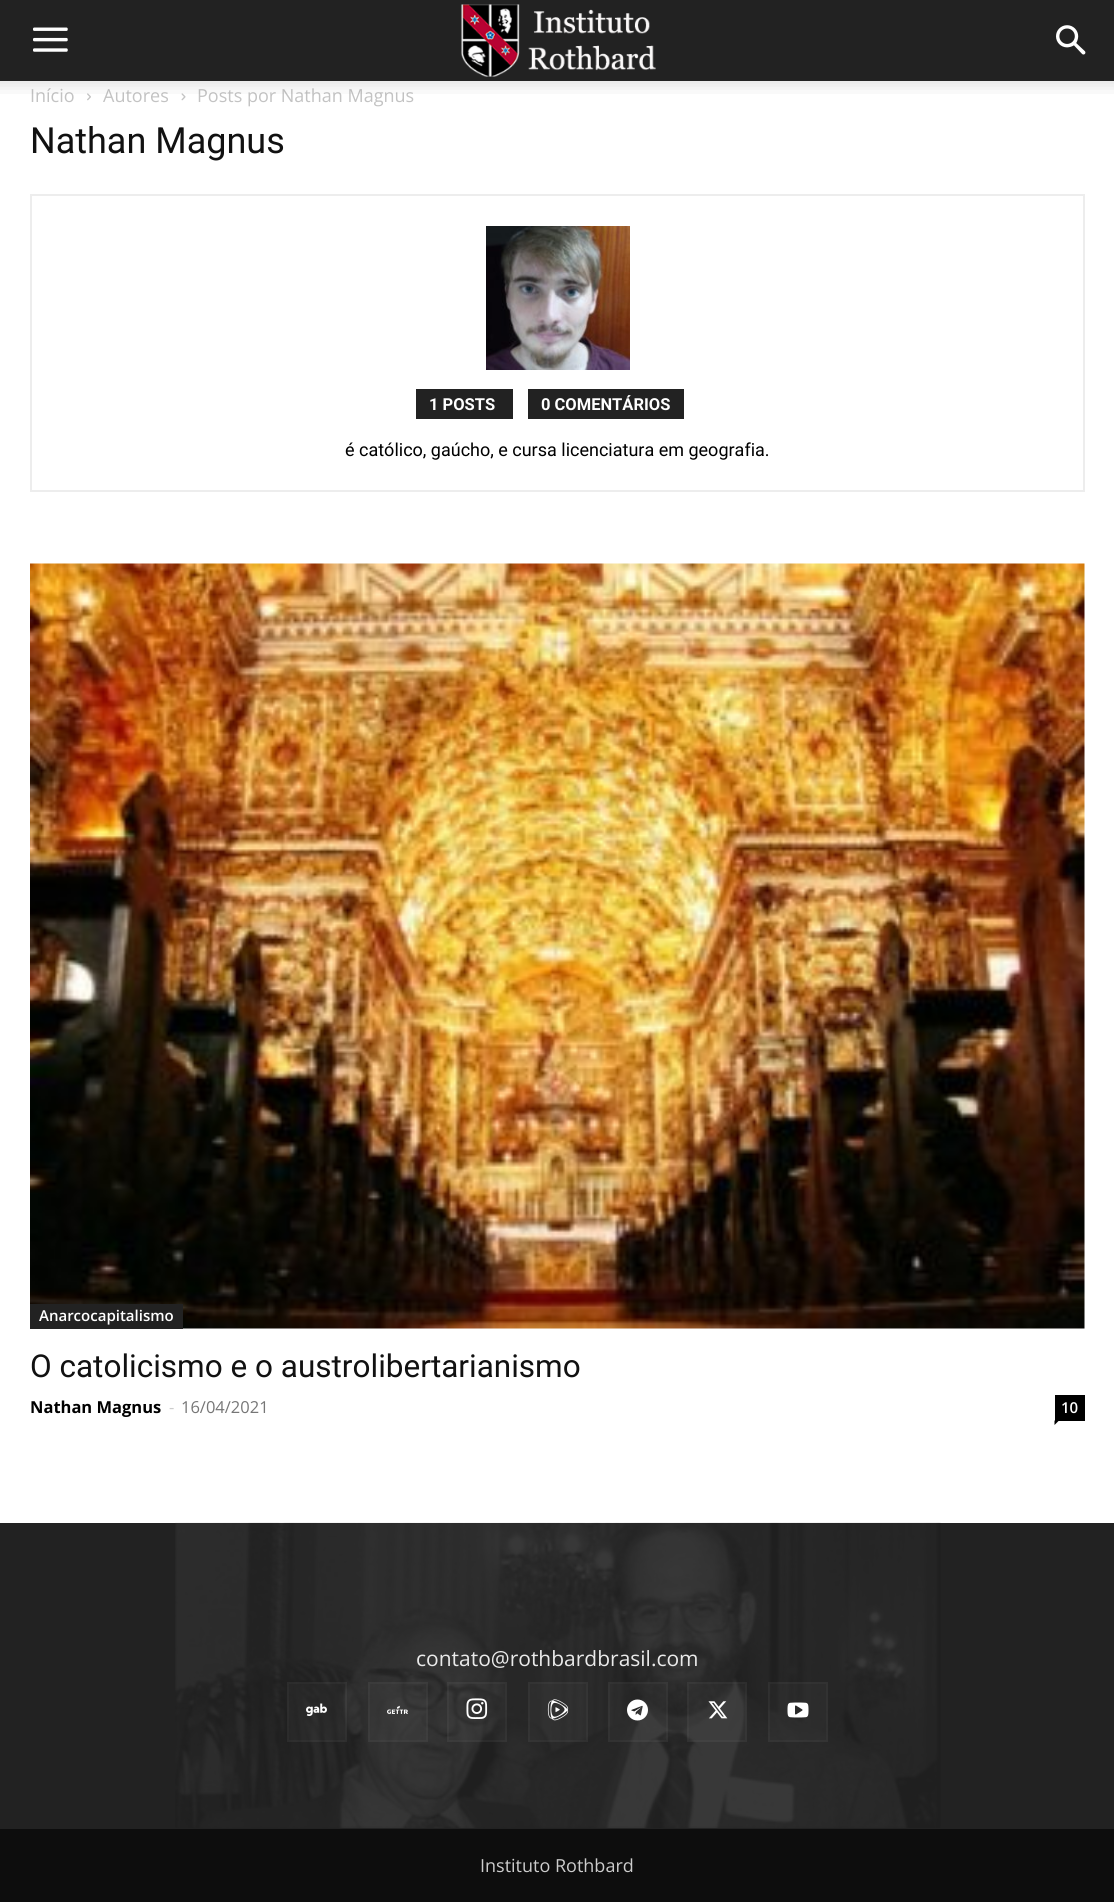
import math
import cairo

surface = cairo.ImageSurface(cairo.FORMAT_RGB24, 1114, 1902)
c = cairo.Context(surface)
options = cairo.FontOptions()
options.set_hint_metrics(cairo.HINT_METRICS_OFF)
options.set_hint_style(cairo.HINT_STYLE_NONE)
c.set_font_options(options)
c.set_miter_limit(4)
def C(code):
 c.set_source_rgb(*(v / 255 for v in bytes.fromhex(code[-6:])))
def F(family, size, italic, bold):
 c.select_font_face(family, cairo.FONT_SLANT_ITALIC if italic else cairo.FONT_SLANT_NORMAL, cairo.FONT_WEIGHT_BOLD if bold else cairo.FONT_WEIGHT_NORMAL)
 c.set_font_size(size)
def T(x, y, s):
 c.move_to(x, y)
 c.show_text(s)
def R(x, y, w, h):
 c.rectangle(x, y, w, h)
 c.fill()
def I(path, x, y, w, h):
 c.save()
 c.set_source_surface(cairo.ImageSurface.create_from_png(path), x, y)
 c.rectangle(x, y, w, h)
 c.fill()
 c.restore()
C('ffffff')
c.paint()
C('222222')
R(0,0,1114,81)
I('1.png',33,27,35,25)
I('2.png',461,4,195,73)
I('3.png',1056,25,30,30)
F('Open Sans',18,0,0)
C('c3c3c3')
T(30,102,'Início')
I('5.png',87,93,4,8)
T(103,102,'Autores')
I('6.png',181,93,5,8)
T(197,102,'Posts por Nathan Magnus')
I('4.png',0,81,1114,13)
F('Roboto',36,0,0)
C('111111')
T(30,153,'Nathan Magnus')
c.rectangle(31,195,1053,296)
C('ededed')
c.stroke()
I('7.png',486,226,144,144)
C('222222')
R(416,389,97,30)
F('Roboto',16.5,0,1)
C('ffffff')
T(429,410,'1 POSTS')
C('222222')
R(528,389,156,30)
C('ffffff')
T(541,410,'0 COMENTÁRIOS')
F('Roboto',18,0,0)
C('000000')
T(345,456,'é católico, gaúcho, e cursa licenciatura em geografia.')
I('8.png',30,563,1055,766)
C('222222')
R(30,1304,153,25)
F('Open Sans SemiBold',15,0,0)
C('ffffff')
T(39,1321,'Anarcocapitalismo')
F('Roboto',31.5,0,0)
C('111111')
T(30,1377,'O catolicismo e o austrolibertarianismo')
F('Open Sans',16.5,0,1)
C('000000')
T(30,1413,'Nathan Magnus')
F('Open Sans',16.5,0,0)
C('cccccc')
T(169,1413,'-')
C('767676')
T(181,1413,'16/04/2021')
C('000000')
R(1055,1395,30,26)
F('Open Sans SemiBold',15,0,0)
C('ffffff')
T(1061,1413,'10')
C('000000')
c.new_path()
c.move_to(1054.5,1420.5)
c.line_to(1059,1420.5)
c.line_to(1054.5,1425)
c.close_path()
c.fill()
C('222222')
R(0,1523,1114,306)
I('9.png',175,1522,766,306)
F('Open Sans',21,0,0)
C('eaeaea')
T(416,1666,'contato@rothbardbrasil.com')
c.set_source_rgba(1,1,1,0.03)
R(287,1682,60,60)
I('10.png',306,1703,21,14)
c.rectangle(288,1683,58,58)
c.stroke()
R(368,1682,60,60)
I('11.png',387,1705,21,9)
c.rectangle(369,1683,58,58)
c.stroke()
R(447,1682,60,60)
I('12.png',466,1698,22,21)
c.rectangle(448,1683,58,58)
c.stroke()
R(528,1682,60,60)
I('13.png',547,1699,22,22)
c.rectangle(529,1683,58,58)
c.stroke()
R(608,1682,60,60)
I('14.png',627,1699,21,22)
c.rectangle(609,1683,58,58)
c.stroke()
R(687,1682,60,60)
I('15.png',708,1701,20,18)
c.rectangle(688,1683,58,58)
c.stroke()
R(768,1682,60,60)
I('16.png',787,1702,22,16)
c.rectangle(769,1683,58,58)
c.stroke()
C('0d0d0d')
R(0,1829,1114,73)
F('Open Sans',18,0,0)
C('cccccc')
T(480,1872,'Instituto Rothbard')
surface.write_to_png('o.png')
